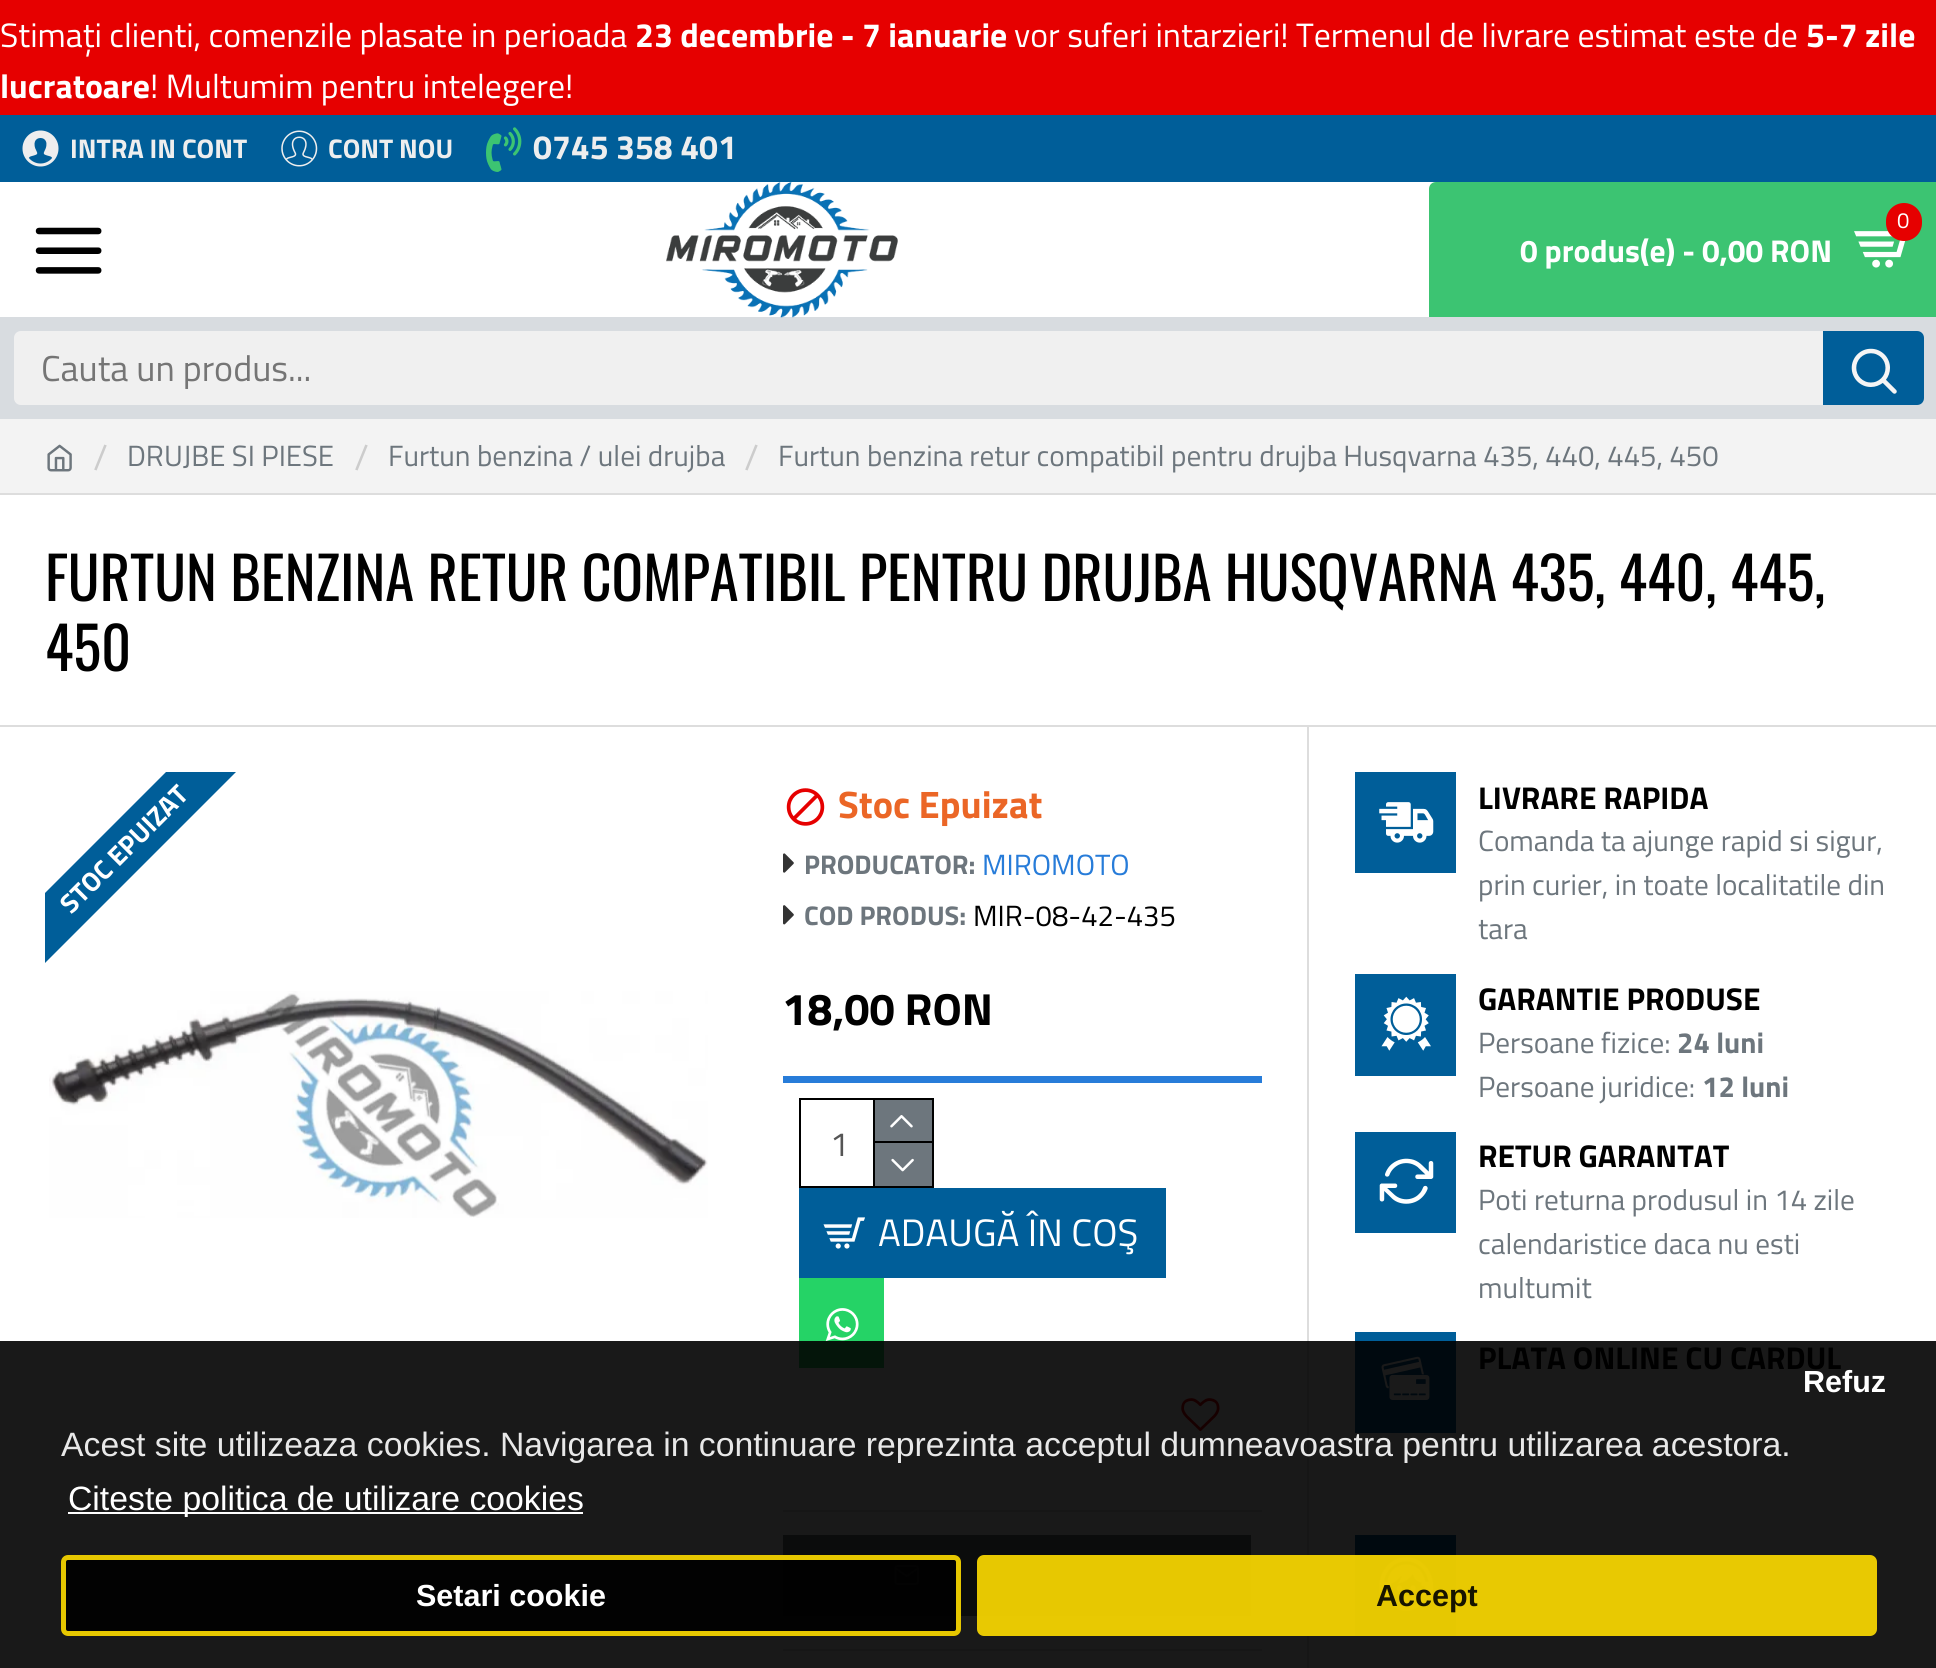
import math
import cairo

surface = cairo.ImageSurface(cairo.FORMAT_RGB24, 1936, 1668)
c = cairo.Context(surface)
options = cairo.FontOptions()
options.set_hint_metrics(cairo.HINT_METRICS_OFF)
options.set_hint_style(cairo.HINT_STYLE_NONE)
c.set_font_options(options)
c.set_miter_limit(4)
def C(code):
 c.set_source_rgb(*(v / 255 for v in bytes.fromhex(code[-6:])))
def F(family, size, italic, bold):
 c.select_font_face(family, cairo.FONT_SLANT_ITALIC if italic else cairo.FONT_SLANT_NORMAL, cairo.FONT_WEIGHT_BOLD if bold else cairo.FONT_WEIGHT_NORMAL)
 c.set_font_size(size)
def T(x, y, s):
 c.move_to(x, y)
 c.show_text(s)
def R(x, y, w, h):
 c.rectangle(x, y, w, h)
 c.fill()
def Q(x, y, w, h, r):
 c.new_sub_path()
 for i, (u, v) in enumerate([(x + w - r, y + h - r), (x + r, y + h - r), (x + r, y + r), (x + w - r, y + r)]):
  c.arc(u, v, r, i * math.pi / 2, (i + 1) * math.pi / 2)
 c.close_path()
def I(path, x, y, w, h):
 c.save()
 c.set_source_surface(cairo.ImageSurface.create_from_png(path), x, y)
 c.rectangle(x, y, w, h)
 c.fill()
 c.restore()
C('ffffff')
c.paint()
C('191919')
R(0,1341,1936,327)
C('e60000')
R(0,0,1936,115)
F('Titillium Web',33.75,0,0)
C('ffffff')
T(0,47,'Stimați clienti, comenzile plasate in perioada')
F('Titillium Web',33.75,0,1)
T(635,47,'23 decembrie - 7 ianuarie')
F('Titillium Web',33.75,0,0)
T(1014,47,'vor suferi intarzieri! Termenul de livrare estimat este de')
F('Titillium Web',33.75,0,1)
T(1806,47,'5-7 zile')
T(0,98,'lucratoare')
F('Titillium Web',33.75,0,0)
T(150,98,'! Multumim pentru intelegere!')
C('005e99')
R(0,115,1936,67)
I('1.png',22,130,37,37)
F('Titillium Web',27,0,1)
C('eeeeee')
T(70,158,'INTRA IN CONT')
I('2.png',281,130,37,37)
T(328,158,'CONT NOU')
I('3.png',486,127,36,45)
F('Titillium Web',33.75,0,1)
T(533,159,'0745 358 401')
I('4.png',35,227,67,47)
C('d8dce0')
R(0,317,1936,102)
I('5.png',666,182,232,136)
C('3cc472')
c.new_path()
c.move_to(1436,182)
c.line_to(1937,182)
c.line_to(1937,317)
c.line_to(1429,317)
c.line_to(1429,189)
c.curve_to(1429,185,1432,182,1436,182)
c.close_path()
c.fill()
I('6.png',1854,231,52,37)
C('e60000')
Q(1886,203,36,38,18)
c.fill()
F('Titillium Web',22,0,0)
C('ffffff')
T(1897,228,'0')
F('Titillium Web',31.5,0,1)
T(1520,262,'0 produs(e) - 0,00 RON')
C('f0f0f0')
c.new_path()
c.move_to(21,331)
c.line_to(1823,331)
c.line_to(1823,405)
c.line_to(21,405)
c.curve_to(17,405,14,402,14,398)
c.line_to(14,338)
c.curve_to(14,334,17,331,21,331)
c.close_path()
c.fill()
F('Titillium Web',36,0,0)
C('757575')
T(41,381,'Cauta un produs...')
C('005e99')
c.new_path()
c.move_to(1823,331)
c.line_to(1917,331)
c.curve_to(1921,331,1924,334,1924,338)
c.line_to(1924,398)
c.curve_to(1924,402,1921,405,1917,405)
c.line_to(1823,405)
c.close_path()
c.fill()
I('7.png',1851,348,46,46)
C('f3f3f3')
R(0,419,1936,74)
C('dddddd')
R(0,493,1936,2)
I('8.png',47,444,25,28)
C('cccccc')
T(93,470,'/')
F('Titillium Web',29.25,0,0)
C('6d767d')
T(127,466,'DRUJBE SI PIESE')
F('Titillium Web',36,0,0)
C('cccccc')
T(354,470,'/')
F('Titillium Web',29.25,0,0)
C('6d767d')
T(388,466,'Furtun benzina / ulei drujba')
F('Titillium Web',36,0,0)
C('cccccc')
T(744,470,'/')
F('Titillium Web',29.25,0,0)
C('6d767d')
T(778,466,'Furtun benzina retur compatibil pentru drujba Husqvarna 435, 440, 445, 450')
C('dddddd')
R(0,725,1936,2)
F('Oswald',58.5,0,0)
C('000000')
T(45,601,'FURTUN BENZINA RETUR COMPATIBIL PENTRU DRUJBA HUSQVARNA 435, 440, 445,')
T(45,671,'450')
c.save()
c.rectangle(45,772,671,670)
c.clip()
C('005e99')
c.new_path()
c.move_to(-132,1070)
c.line_to(345,593)
c.line_to(380,628)
c.line_to(-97,1105)
c.close_path()
c.fill()
c.restore()
F('Titillium Web',27,0,1)
C('ffffff')
c.save()
c.translate(71,915)
c.rotate(-45 * math.pi / 180)
T(0,0,'STOC EPUIZAT')
c.restore()
I('9.png',49,991,659,227)
I('10.png',786,788,39,38)
F('Titillium Web',38.25,0,1)
C('eb6626')
T(838,818,'Stoc Epuizat')
I('11.png',783,853,11,20)
F('Titillium Web',27,0,1)
C('6d767d')
T(804,874,'PRODUCATOR:')
F('Titillium Web',29.25,0,0)
C('277cd9')
T(982,875,'MIROMOTO')
I('12.png',783,905,11,20)
F('Titillium Web',27,0,1)
C('6d767d')
T(804,925,'COD PRODUS:')
F('Titillium Web',29.25,0,0)
C('000000')
T(973,926,'MIR-08-42-435')
F('Titillium Web',45,0,1)
T(782,1025,'18,00 RON')
C('277cd9')
R(783,1076,479,7)
c.rectangle(800,1099,133,88)
C('000000')
c.stroke()
F('Titillium Web',33.75,0,0)
C('555555')
T(830,1156,'1')
C('000000')
R(873,1100,2,86)
C('6d767d')
R(875,1100,57,41)
C('000000')
R(875,1141,57,2)
I('13.png',890,1115,23,13)
C('6d767d')
R(875,1143,57,43)
I('14.png',891,1158,23,14)
C('005e99')
R(799,1188,367,90)
I('15.png',823,1217,42,32)
F('Titillium Web',38.25,0,0)
C('ffffff')
T(878,1246,'ADAUGĂ ÎN COŞ')
C('25d366')
R(799,1278,85,63)
C('04150a')
R(799,1341,85,27)
I('16.png',825,1308,34,33)
I('17.png',1181,1398,39,33)
C('161616')
R(783,1510,479,2)
C('0b0c0c')
R(783,1535,468,81)
I('18.png',894,1564,26,22)
C('161616')
R(783,1649,479,2)
C('dddddd')
R(1307,727,2,614)
C('161616')
R(1307,1341,2,327)
C('005e99')
R(1355,772,101,101)
I('19.png',1379,802,55,41)
F('Titillium Web',31.5,0,1)
C('000000')
T(1478,809,'LIVRARE RAPIDA')
F('Titillium Web',29.25,0,0)
C('6d767d')
T(1478,851,'Comanda ta ajunge rapid si sigur,')
T(1478,895,'prin curier, in toate localitatile din')
T(1478,939,'tara')
C('005e99')
R(1355,974,101,102)
I('20.png',1381,996,50,55)
F('Titillium Web',31.5,0,1)
C('000000')
T(1478,1010,'GARANTIE PRODUSE')
F('Titillium Web',29.25,0,0)
C('6d767d')
T(1478,1053,'Persoane fizice:')
F('Titillium Web',29.25,0,1)
T(1677,1053,'24 luni')
F('Titillium Web',29.25,0,0)
T(1478,1097,'Persoane juridice:')
F('Titillium Web',29.25,0,1)
T(1702,1097,'12 luni')
C('005e99')
R(1355,1132,101,101)
I('21.png',1379,1158,55,46)
F('Titillium Web',31.5,0,1)
C('000000')
T(1478,1167,'RETUR GARANTAT')
F('Titillium Web',29.25,0,0)
C('6d767d')
T(1478,1210,'Poti returna produsul in 14 zile')
T(1478,1254,'calendaristice daca nu esti')
T(1478,1298,'multumit')
C('005e99')
R(1355,1332,101,9)
C('00090f')
R(1355,1341,101,92)
I('22.png',1381,1356,49,44)
F('Titillium Web',31.5,0,1)
C('000000')
T(1478,1369,'PLATA ONLINE CU CARDUL')
C('00090f')
R(1355,1535,101,101)
I('23.png',1379,1557,55,54)
F('Liberation Sans',30.5,0,1)
C('ffffff')
T(1803,1392,'Refuz')
c.set_source_rgba(0,0,0,0.9)
Q(61,1555,900,81,7)
c.fill()
Q(63.5,1557.5,895,76,4.5)
c.set_source_rgba(1,0.867,0,0.9)
c.set_line_width(5)
c.stroke()
C('ffffff')
T(416,1606,'Setari cookie')
c.set_source_rgba(1,0.867,0,0.9)
Q(977,1555,900,81,7)
c.fill()
C('171400')
T(1376,1606,'Accept')
F('Liberation Sans',33.75,0,0)
C('e8e8e8')
T(61,1456,'Acest site utilizeaza cookies. Navigarea in continuare reprezinta acceptul dumneavoastra pentru utilizarea acestora.')
C('ffffff')
R(68,1512,515,2)
T(68,1510,'Citeste politica de utilizare cookies')
surface.write_to_png('o.png')
